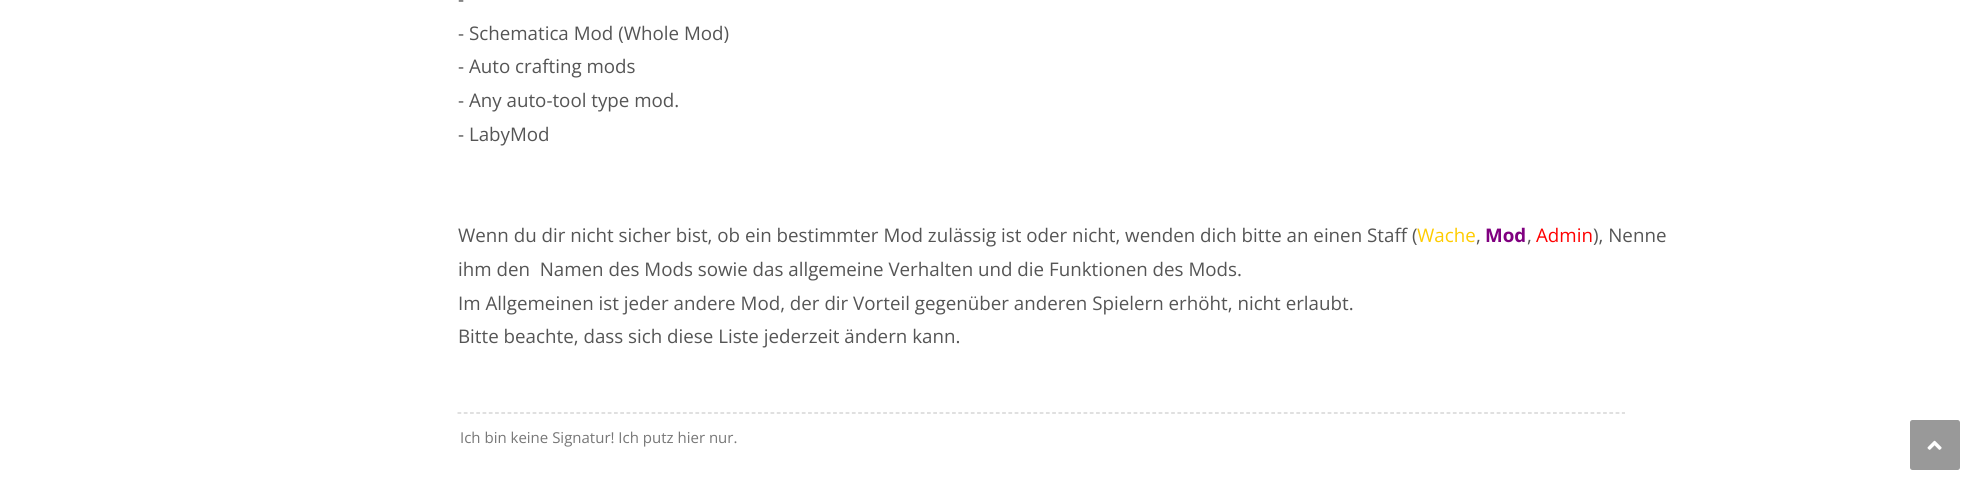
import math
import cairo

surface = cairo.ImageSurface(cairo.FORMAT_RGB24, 1985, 494)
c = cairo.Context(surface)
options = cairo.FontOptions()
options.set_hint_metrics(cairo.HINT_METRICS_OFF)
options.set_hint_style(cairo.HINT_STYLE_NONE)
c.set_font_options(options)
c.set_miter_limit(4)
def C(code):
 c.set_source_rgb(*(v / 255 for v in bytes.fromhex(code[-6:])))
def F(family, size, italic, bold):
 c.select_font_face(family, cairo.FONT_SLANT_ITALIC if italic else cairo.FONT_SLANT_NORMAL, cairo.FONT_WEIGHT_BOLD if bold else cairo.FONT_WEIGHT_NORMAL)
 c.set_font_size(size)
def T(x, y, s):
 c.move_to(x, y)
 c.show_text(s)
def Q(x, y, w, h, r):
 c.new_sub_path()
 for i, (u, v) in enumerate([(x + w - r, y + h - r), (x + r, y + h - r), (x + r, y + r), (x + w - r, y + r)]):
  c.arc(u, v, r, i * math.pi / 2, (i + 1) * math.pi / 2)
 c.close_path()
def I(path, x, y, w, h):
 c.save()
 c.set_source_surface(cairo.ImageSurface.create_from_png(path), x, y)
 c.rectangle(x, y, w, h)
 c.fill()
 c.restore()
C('ffffff')
c.paint()
F('Open Sans',18.75,0,0)
C('555555')
T(458,6,'-')
T(458,40,'- Schematica Mod (Whole Mod)')
T(458,73,'- Auto crafting mods')
T(458,107,'- Any auto-tool type mod.')
T(458,141,'- LabyMod')
T(458,242,'Wenn du dir nicht sicher bist, ob ein bestimmter Mod zulässig ist oder nicht, wenden dich bitte an einen Staff (')
C('ffcc00')
T(1417,242,'Wache')
C('555555')
T(1476,242,',')
F('Open Sans',18.75,0,1)
C('800080')
T(1485,242,'Mod')
F('Open Sans',18.75,0,0)
C('555555')
T(1527,242,',')
C('ff0000')
T(1536,242,'Admin')
C('555555')
T(1593,242,'), Nenne')
T(458,276,'ihm den  Namen des Mods sowie das allgemeine Verhalten und die Funktionen des Mods.')
T(458,310,'Im Allgemeinen ist jeder andere Mod, der dir Vorteil gegenüber anderen Spielern erhöht, nicht erlaubt.')
T(458,343,'Bitte beachte, dass sich diese Liste jederzeit ändern kann.')
c.new_path()
c.move_to(457.5,413)
c.line_to(1625,413)
C('cccccc')
c.set_line_width(1.2)
c.set_dash([3.75,2.51])
c.stroke()
F('Open Sans',15,0,0)
C('777777')
T(460,443,'Ich bin keine Signatur! Ich putz hier nur.')
C('999999')
Q(1910,420,50,50,2.5)
c.fill()
I('1.png',1927,440,15,10)
surface.write_to_png('o.png')
